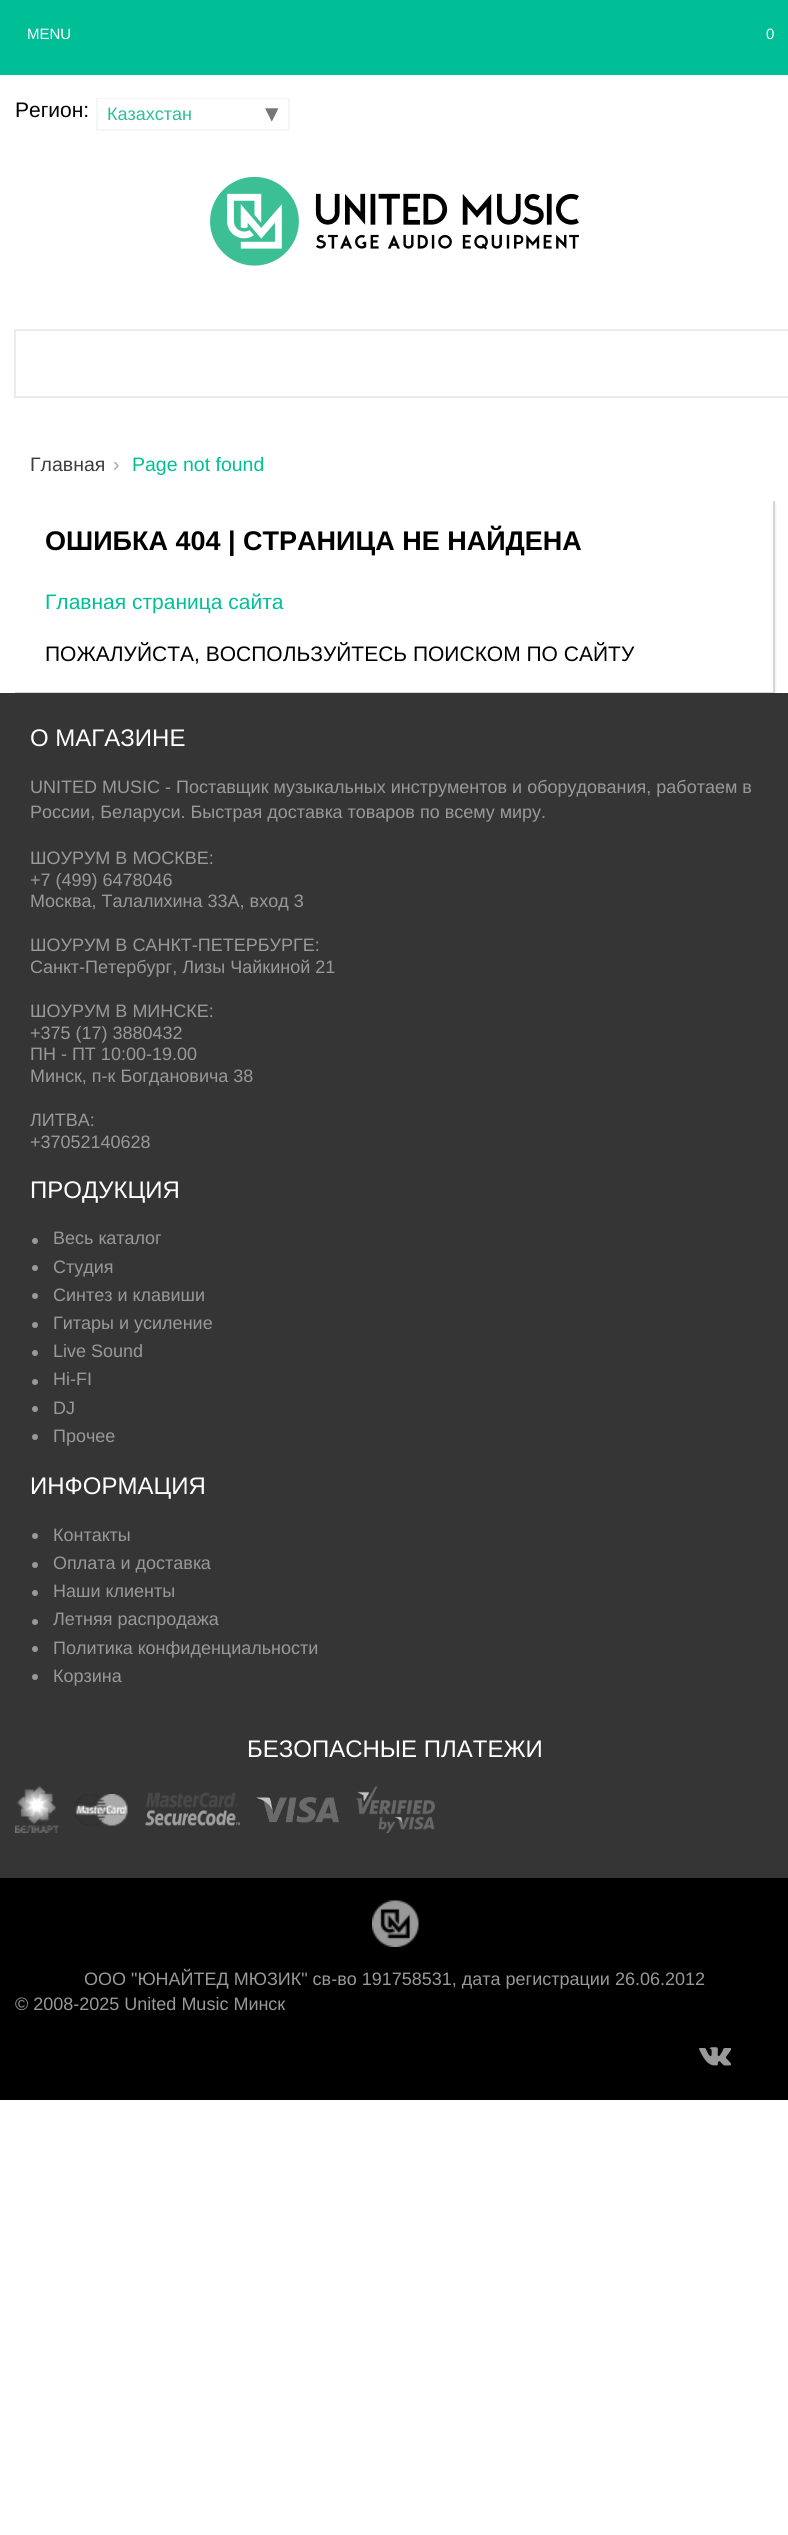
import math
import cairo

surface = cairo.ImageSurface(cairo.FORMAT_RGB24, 788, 2535)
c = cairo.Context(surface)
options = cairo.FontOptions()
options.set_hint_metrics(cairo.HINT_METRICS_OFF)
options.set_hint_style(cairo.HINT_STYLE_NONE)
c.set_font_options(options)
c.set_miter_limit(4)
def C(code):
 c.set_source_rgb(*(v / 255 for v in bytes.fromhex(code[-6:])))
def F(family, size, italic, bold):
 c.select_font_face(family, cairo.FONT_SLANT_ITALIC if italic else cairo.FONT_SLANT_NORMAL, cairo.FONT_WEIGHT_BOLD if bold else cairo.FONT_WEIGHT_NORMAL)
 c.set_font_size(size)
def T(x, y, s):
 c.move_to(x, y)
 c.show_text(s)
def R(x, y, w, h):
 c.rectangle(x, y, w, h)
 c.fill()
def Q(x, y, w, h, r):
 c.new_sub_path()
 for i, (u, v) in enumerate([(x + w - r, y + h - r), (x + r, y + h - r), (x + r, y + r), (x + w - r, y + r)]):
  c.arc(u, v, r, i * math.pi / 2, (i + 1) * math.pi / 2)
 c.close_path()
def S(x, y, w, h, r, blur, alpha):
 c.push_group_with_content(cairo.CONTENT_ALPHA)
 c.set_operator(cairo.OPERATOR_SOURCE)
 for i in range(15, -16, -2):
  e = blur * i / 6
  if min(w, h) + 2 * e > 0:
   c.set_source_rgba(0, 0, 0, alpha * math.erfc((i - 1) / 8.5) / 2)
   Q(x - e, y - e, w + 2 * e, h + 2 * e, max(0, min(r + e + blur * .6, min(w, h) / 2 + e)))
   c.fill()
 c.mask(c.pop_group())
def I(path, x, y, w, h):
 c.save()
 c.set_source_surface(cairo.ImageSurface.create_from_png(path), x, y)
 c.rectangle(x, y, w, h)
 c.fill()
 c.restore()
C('ffffff')
c.paint()
C('00bf96')
R(0,0,788,75)
F('Liberation Sans',15,0,0)
C('ffffff')
T(27,39,'MENU')
T(766,39,'0')
I('1.png',210,176,369,90)
c.rectangle(15,330,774,67)
C('ebebeb')
c.stroke()
F('Liberation Sans',21,0,0)
C('000000')
T(15,117,'Регион:')
c.rectangle(97,99,192,31)
C('f6f6f6')
c.stroke()
C('ffffff')
R(98,99,190,1)
F('Liberation Sans',18,0,0)
C('2dbf95')
T(107,120,'Казахстан')
F('DejaVu Sans',27,0,0)
C('777777')
T(265,122,'▾')
F('Liberation Sans',19.5,0,0)
C('3e3e3e')
T(30,471,'Главная')
C('a5a5a5')
T(113,471,'›')
C('00bf96')
T(132,471,'Page not found')
c.save()
c.rectangle(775,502,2,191)
c.clip()
C('585858')
S(17,503,759,192,0,1,.1)
c.restore()
C('d8d6d4')
R(773,501,2,192)
R(15,692,759,1)
F('Liberation Sans',27,0,1)
C('000000')
T(45,550,'ОШИБКА 404 | СТРАНИЦА НЕ НАЙДЕНА')
F('Liberation Sans',21,0,0)
C('00bf96')
T(45,609,'Главная страница сайта')
C('000000')
T(45,661,'ПОЖАЛУЙСТА, ВОСПОЛЬЗУЙТЕСЬ ПОИСКОМ ПО САЙТУ')
C('353535')
R(0,693,788,1185)
F('Liberation Sans',24,0,0)
C('ffffff')
T(30,746,'О МАГАЗИНЕ')
F('Liberation Sans',18,0,0)
C('999999')
T(30,793,'UNITED MUSIC - Поставщик музыкальных инструментов и оборудования, работаем в')
T(30,818,'России, Беларуси. Быстрая доставка товаров по всему миру.')
T(30,864,'ШОУРУМ В МОСКВЕ:')
T(30,886,'+7 (499) 6478046')
T(30,907,'Москва, Талалихина 33А, вход 3')
T(30,951,'ШОУРУМ В САНКТ-ПЕТЕРБУРГЕ:')
T(30,973,'Санкт-Петербург, Лизы Чайкиной 21')
T(30,1017,'ШОУРУМ В МИНСКЕ:')
T(30,1039,'+375 (17) 3880432')
T(30,1060,'ПН - ПТ 10:00-19.00')
T(30,1082,'Минск, п-к Богдановича 38')
T(30,1126,'ЛИТВА:')
T(30,1148,'+37052140628')
F('Liberation Sans',24,0,0)
C('ffffff')
T(30,1198,'ПРОДУКЦИЯ')
C('999999')
c.new_path()
c.arc(35,1241,3,0,2 * math.pi)
c.fill()
F('Liberation Sans',18,0,0)
T(53,1244,'Весь каталог')
c.new_path()
c.arc(35,1268,3,0,2 * math.pi)
c.fill()
T(53,1273,'Студия')
c.new_path()
c.arc(35,1296,3,0,2 * math.pi)
c.fill()
T(53,1301,'Синтез и клавиши')
c.new_path()
c.arc(35,1325,3,0,2 * math.pi)
c.fill()
T(53,1329,'Гитары и усиление')
c.new_path()
c.arc(35,1353,3,0,2 * math.pi)
c.fill()
T(53,1357,'Live Sound')
c.new_path()
c.arc(35,1382,3,0,2 * math.pi)
c.fill()
T(53,1385,'Hi-FI')
c.new_path()
c.arc(35,1409,3,0,2 * math.pi)
c.fill()
T(53,1414,'DJ')
c.new_path()
c.arc(35,1437,3,0,2 * math.pi)
c.fill()
T(53,1442,'Прочее')
F('Liberation Sans',24,0,0)
C('ffffff')
T(30,1494,'ИНФОРМАЦИЯ')
C('999999')
c.new_path()
c.arc(35,1536,3,0,2 * math.pi)
c.fill()
F('Liberation Sans',18,0,0)
T(53,1541,'Контакты')
c.new_path()
c.arc(35,1565,3,0,2 * math.pi)
c.fill()
T(53,1569,'Оплата и доставка')
c.new_path()
c.arc(35,1593,3,0,2 * math.pi)
c.fill()
T(53,1597,'Наши клиенты')
c.new_path()
c.arc(35,1622,3,0,2 * math.pi)
c.fill()
T(53,1625,'Летняя распродажа')
c.new_path()
c.arc(35,1649,3,0,2 * math.pi)
c.fill()
T(53,1654,'Политика конфиденциальности')
c.new_path()
c.arc(35,1677,3,0,2 * math.pi)
c.fill()
T(53,1682,'Корзина')
F('Liberation Sans',24,0,0)
C('ffffff')
T(247,1757,'БЕЗОПАСНЫЕ ПЛАТЕЖИ')
I('2.png',15,1786,44,47)
I('3.png',75,1794,53,32)
I('4.png',145,1792,95,34)
I('5.png',256,1797,83,26)
I('6.png',355,1786,80,47)
C('000000')
R(0,1878,788,222)
I('7.png',372,1900,47,47)
F('Liberation Sans',18,0,0)
C('999999')
T(84,1985,'ООО "ЮНАЙТЕД МЮЗИК" св-во 191758531, дата регистрации 26.06.2012')
T(15,2010,'© 2008-2025 United Music Минск')
I('8.png',699,2047,33,19)
surface.write_to_png('o.png')
